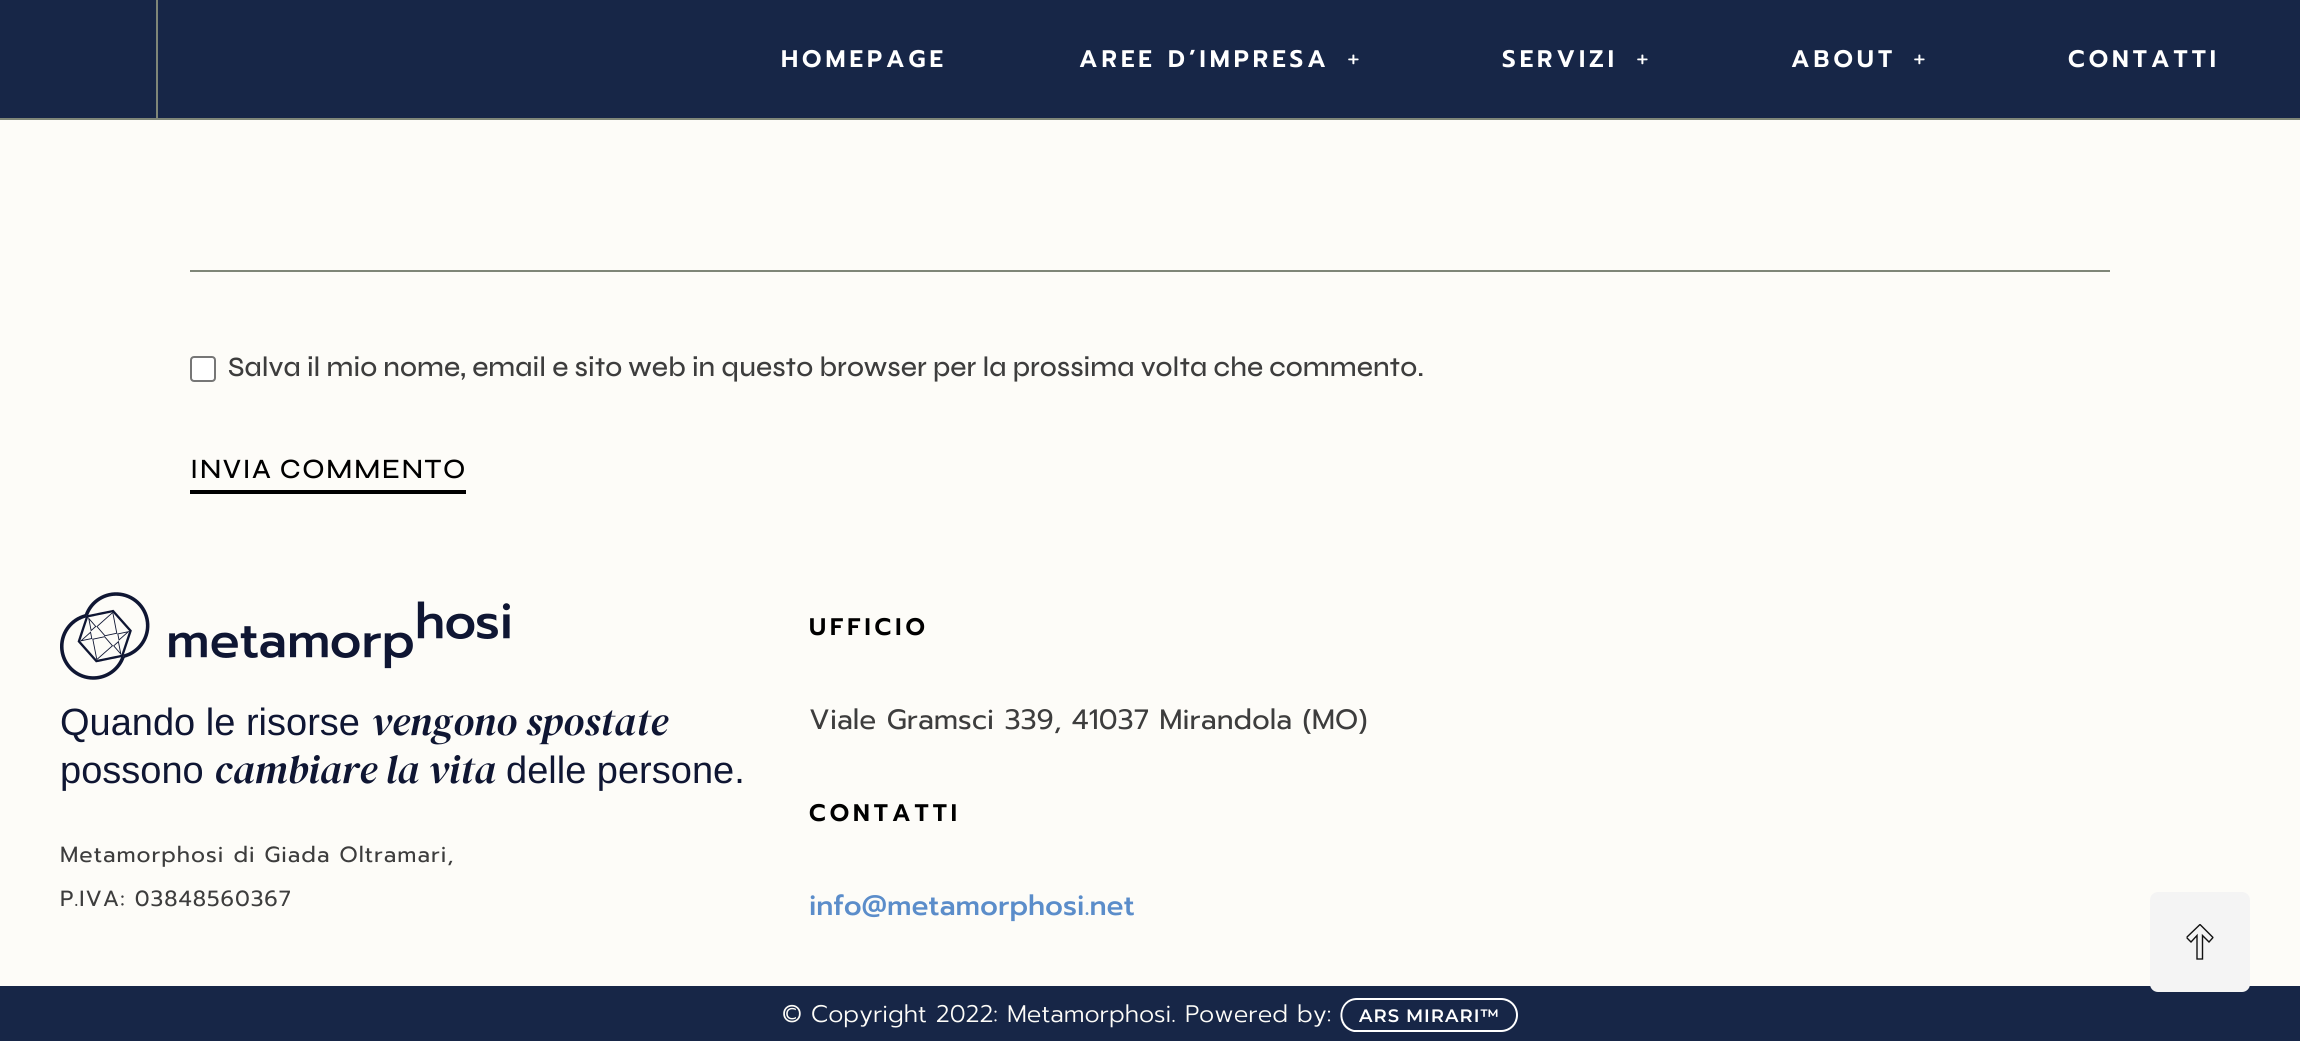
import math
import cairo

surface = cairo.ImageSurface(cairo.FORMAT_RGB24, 2300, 1041)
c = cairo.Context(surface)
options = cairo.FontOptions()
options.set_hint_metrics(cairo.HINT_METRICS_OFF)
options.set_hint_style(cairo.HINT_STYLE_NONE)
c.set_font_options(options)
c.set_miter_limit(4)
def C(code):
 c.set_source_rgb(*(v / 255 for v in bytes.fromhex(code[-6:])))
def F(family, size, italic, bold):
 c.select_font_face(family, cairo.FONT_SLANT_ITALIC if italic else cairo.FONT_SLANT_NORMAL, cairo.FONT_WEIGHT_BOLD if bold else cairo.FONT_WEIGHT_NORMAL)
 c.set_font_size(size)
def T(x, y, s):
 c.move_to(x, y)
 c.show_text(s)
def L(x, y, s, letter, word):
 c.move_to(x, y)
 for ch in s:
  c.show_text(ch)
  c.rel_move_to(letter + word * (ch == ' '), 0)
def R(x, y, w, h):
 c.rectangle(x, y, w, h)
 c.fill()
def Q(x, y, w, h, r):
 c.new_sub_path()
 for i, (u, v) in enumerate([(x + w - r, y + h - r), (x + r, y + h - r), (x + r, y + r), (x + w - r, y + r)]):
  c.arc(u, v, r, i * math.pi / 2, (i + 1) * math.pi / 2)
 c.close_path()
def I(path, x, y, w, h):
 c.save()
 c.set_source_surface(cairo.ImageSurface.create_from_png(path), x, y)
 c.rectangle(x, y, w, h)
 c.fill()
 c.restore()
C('fdfcf8')
c.paint()
C('172647')
R(0,0,2300,118)
C('7f8678')
R(0,118,2300,2)
R(156,0,2,118)
F('Prompt SemiBold',24,0,0)
C('ffffff')
L(781,67,'HOMEPAGE',4,0)
L(1079,67,'AREE D’IMPRESA',4,0)
F('WenQuanYi Zen Hei',24,0,1)
L(1342,67,'﹢',4,0)
F('Prompt SemiBold',24,0,0)
L(1502,67,'SERVIZI',4,0)
F('WenQuanYi Zen Hei',24,0,1)
L(1631,67,'﹢',4,0)
F('Prompt SemiBold',24,0,0)
L(1791,67,'ABOUT',4,0)
F('WenQuanYi Zen Hei',24,0,1)
L(1908,67,'﹢',4,0)
F('Prompt SemiBold',24,0,0)
L(2068,67,'CONTATTI',4,0)
C('7f8678')
R(190,270,1920,2)
C('ffffff')
Q(191,357,24,24,3)
c.fill_preserve()
C('767676')
c.stroke()
F('Syne Medium',28,0,0)
C('3d3d3d')
T(228,376,'Salva il mio nome, email e sito web in questo browser per la prossima volta che commento.')
C('000000')
L(190,478,'INVIA COMMENTO',1.4,0)
R(190,490,276,4)
I('1.png',60,592,450,88)
F('Liberation Sans',38,0,0)
C('0f1633')
T(60,735,'Quando le risorse')
F('DM Serif Display',40,1,0)
T(371,735,'vengono spostate')
F('Liberation Sans',38,0,0)
T(60,783,'possono')
F('DM Serif Display',40,1,0)
T(214,783,'cambiare la vita')
F('Liberation Sans',38,0,0)
T(506,783,'delle persone.')
F('Prompt',22,0,0)
C('3d3d3d')
L(60,862,'Metamorphosi di Giada Oltramari,',1,0)
L(60,906,'P.IVA: 03848560367',1,0)
F('Prompt SemiBold',24,0,0)
C('000000')
L(809,635,'UFFICIO',4,0)
F('Prompt',28,0,0)
C('3d3d3d')
T(809,729,'Viale Gramsci 339, 41037 Mirandola (MO)')
F('Prompt SemiBold',24,0,0)
C('000000')
L(809,821,'CONTATTI',4,0)
F('Prompt Medium',28,0,0)
C('5b8dca')
T(809,915,'info@metamorphosi.net')
C('172647')
R(0,986,2300,55)
F('Prompt Light',24,0,0)
C('fdfcf8')
T(782,1022,'© Copyright 2022: Metamorphosi. Powered by:')
C('ffffff')
c.set_fill_rule(cairo.FILL_RULE_EVEN_ODD)
c.new_path()
c.move_to(1357,998)
c.line_to(1480,998)
c.line_to(1480,1032)
c.line_to(1354,1032)
c.curve_to(1334,1028,1337,998,1357,998)
c.close_path()
c.move_to(1357,1000)
c.line_to(1480,1000)
c.line_to(1480,1030)
c.line_to(1354,1030)
c.curve_to(1337,1026,1339,1000,1357,1000)
c.close_path()
c.fill()
c.new_path()
c.move_to(1480,998)
c.line_to(1501,998)
c.curve_to(1510.5,998,1518,1005.5,1518,1015)
c.curve_to(1518,1024.5,1510.5,1032,1501,1032)
c.line_to(1480,1032)
c.close_path()
c.move_to(1480,1000)
c.line_to(1501,1000)
c.curve_to(1509.5,1000,1516,1006.5,1516,1015)
c.curve_to(1516,1023.5,1509.5,1030,1501,1030)
c.line_to(1480,1030)
c.close_path()
c.fill()
F('Montserrat SemiBold',18,0,0)
L(1359,1022,'ARS MIRARI™',1,0)
C('f4f4f4')
Q(2150,892,100,100,8)
c.fill()
c.save()
c.set_fill_rule(cairo.FILL_RULE_WINDING)
c.new_path()
c.move_to(2186.5,960)
c.line_to(2186.5,924)
c.line_to(2213.5,924)
c.line_to(2213.5,960)
c.close_path()
c.clip()
c.new_path()
c.move_to(2197,959)
c.line_to(2197,935.5)
c.line_to(2191,942)
c.line_to(2186.5,937.5)
c.line_to(2200,924.5)
c.line_to(2213,937.5)
c.line_to(2209,942)
c.line_to(2202.5,935.5)
c.line_to(2202.5,959)
c.close_path()
C('111111')
c.set_line_width(1.4)
c.stroke()
c.restore()
surface.write_to_png('o.png')
